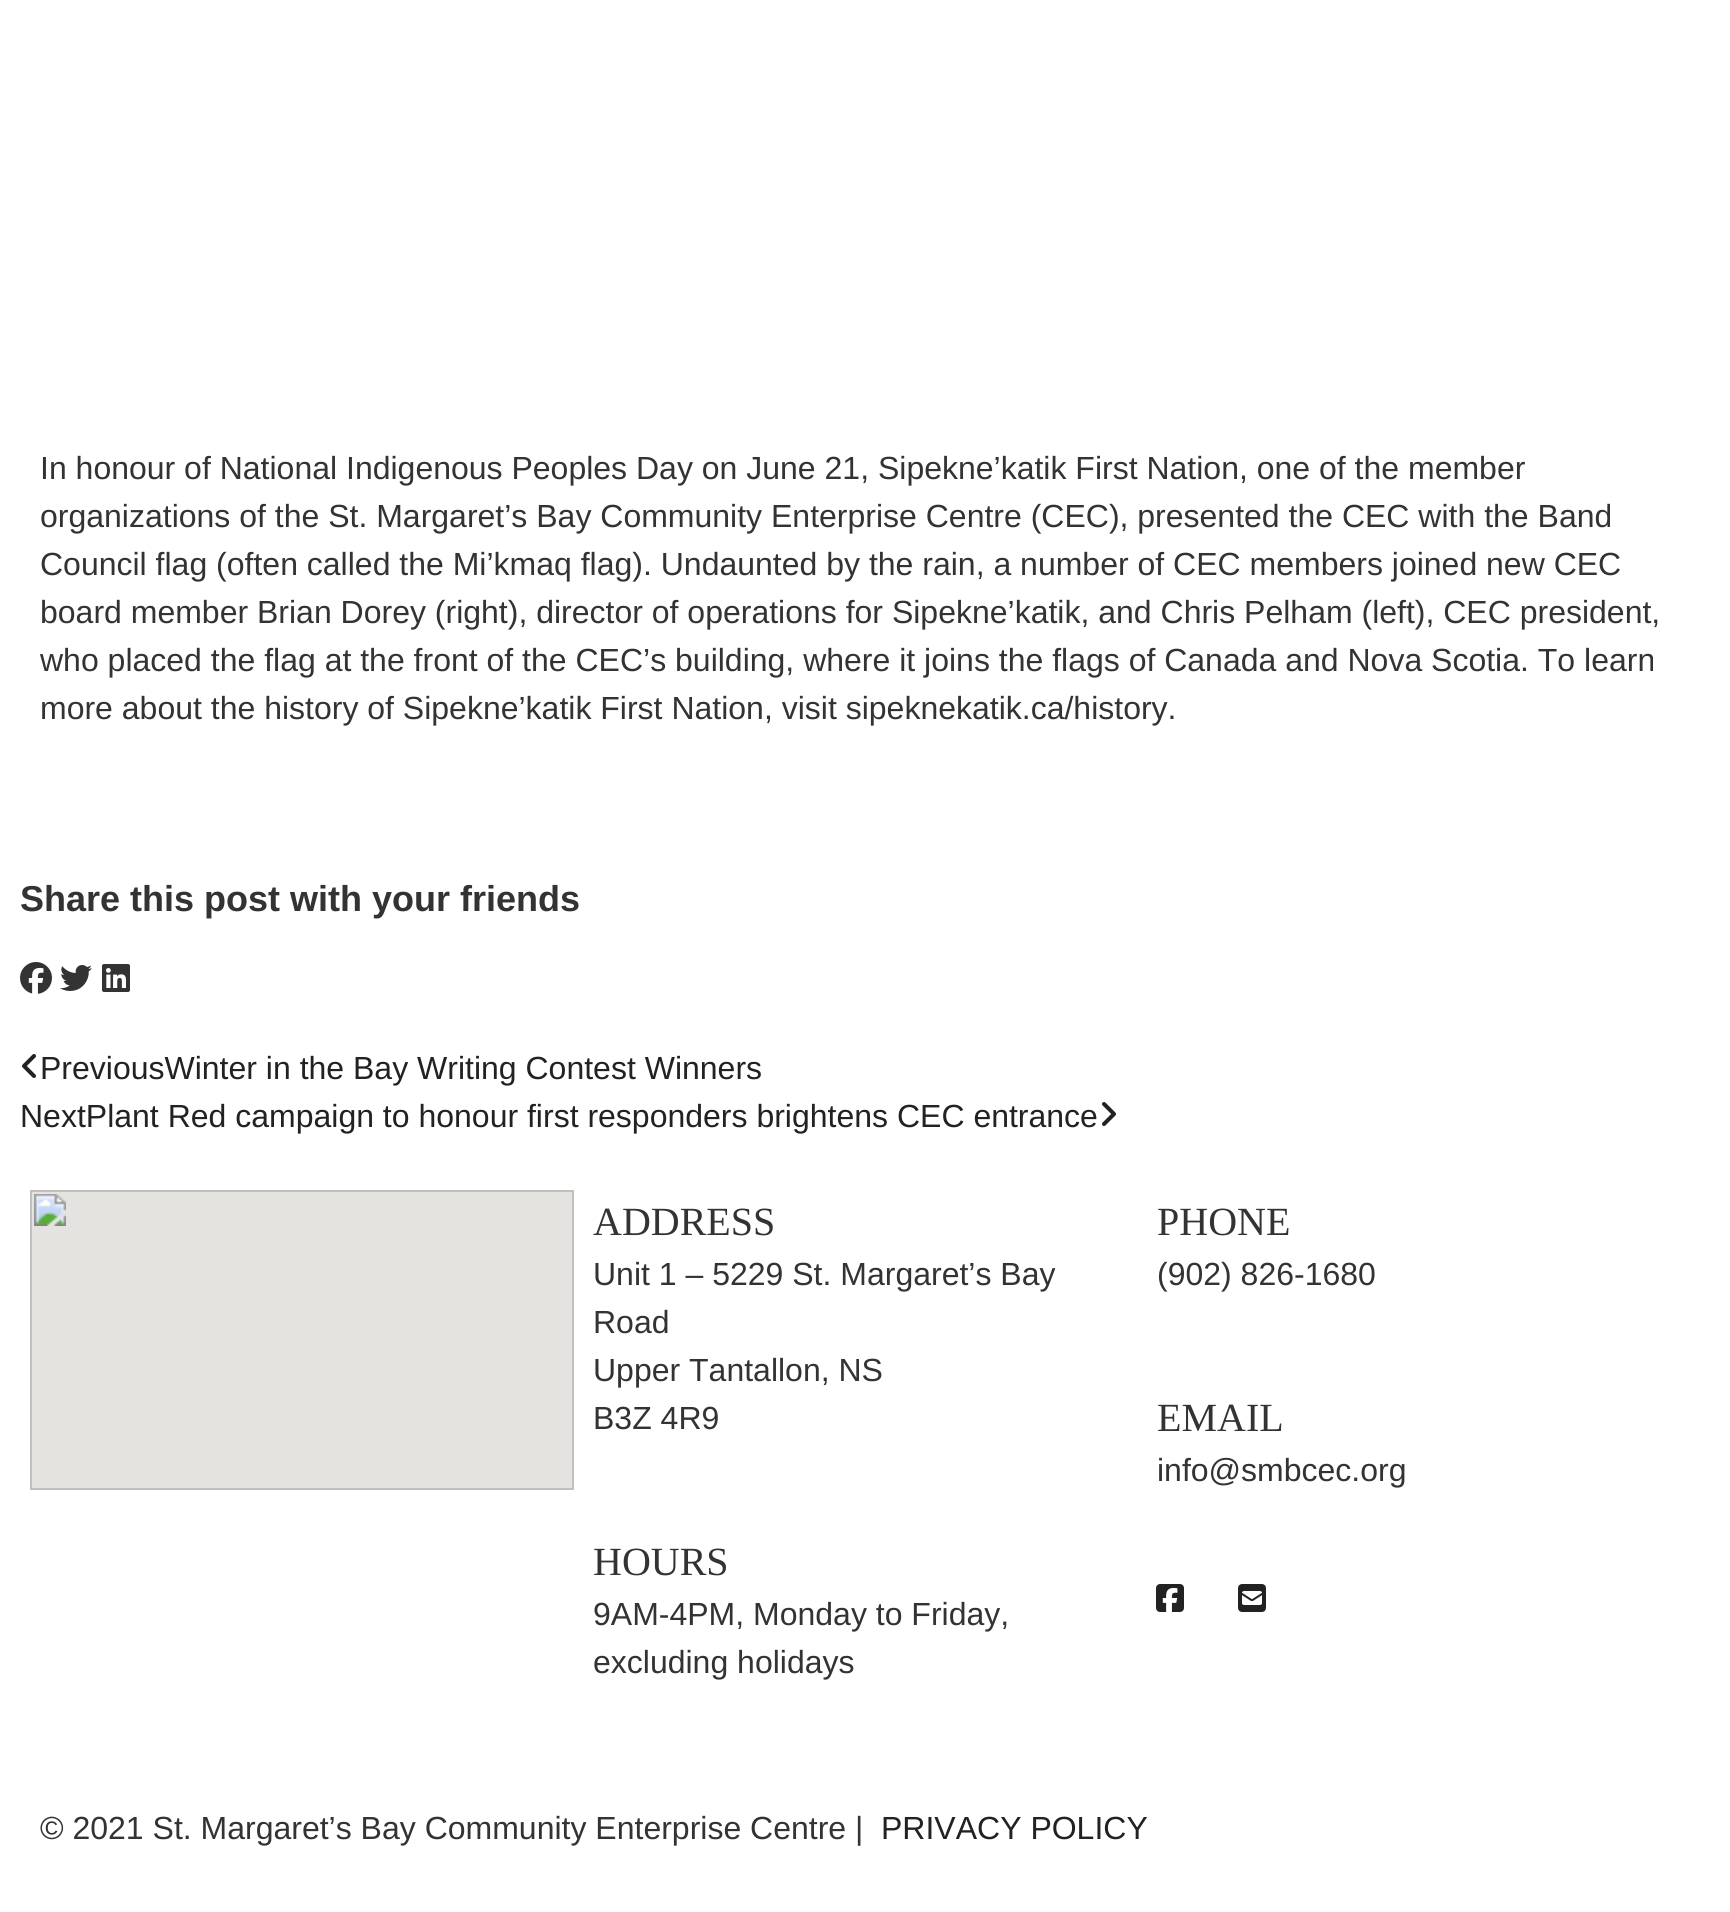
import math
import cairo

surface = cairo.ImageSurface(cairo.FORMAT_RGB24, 1730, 1912)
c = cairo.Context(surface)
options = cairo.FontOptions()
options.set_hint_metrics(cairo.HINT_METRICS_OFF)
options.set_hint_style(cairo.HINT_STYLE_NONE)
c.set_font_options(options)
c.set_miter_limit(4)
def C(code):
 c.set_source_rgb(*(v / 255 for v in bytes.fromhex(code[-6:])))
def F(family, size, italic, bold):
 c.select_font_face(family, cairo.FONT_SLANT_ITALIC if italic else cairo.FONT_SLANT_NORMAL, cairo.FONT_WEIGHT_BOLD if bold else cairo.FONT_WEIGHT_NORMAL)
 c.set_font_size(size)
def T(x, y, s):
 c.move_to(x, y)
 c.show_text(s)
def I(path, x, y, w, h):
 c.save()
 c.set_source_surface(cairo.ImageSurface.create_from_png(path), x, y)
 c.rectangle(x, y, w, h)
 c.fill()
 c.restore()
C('ffffff')
c.paint()
F('Liberation Sans',32,0,0)
C('333333')
T(40,479,'In honour of National Indigenous Peoples Day on June 21, Sipekne’katik First Nation, one of the member')
T(40,527,'organizations of the St. Margaret’s Bay Community Enterprise Centre (CEC), presented the CEC with the Band')
T(40,575,'Council flag (often called the Mi’kmaq flag). Undaunted by the rain, a number of CEC members joined new CEC')
T(40,623,'board member Brian Dorey (right), director of operations for Sipekne’katik, and Chris Pelham (left), CEC president,')
T(40,671,'who placed the flag at the front of the CEC’s building, where it joins the flags of Canada and Nova Scotia. To learn')
T(40,719,'more about the history of Sipekne’katik First Nation, visit sipeknekatik.ca/history.')
F('Liberation Sans',36,0,1)
T(20,911,'Share this post with your friends')
I('1.png',20,962,32,32)
I('2.png',60,965,32,26)
I('3.png',102,964,28,28)
I('4.png',22,1054,14,24)
F('Liberation Sans',32,0,0)
C('222222')
T(40,1079,'PreviousWinter in the Bay Writing Contest Winners')
T(20,1127,'NextPlant Red campaign to honour first responders brightens CEC entrance')
I('5.png',1102,1102,14,24)
I('6.png',30,1190,544,300)
F('Liberation Serif',40,0,0)
C('333333')
T(593,1235,'ADDRESS')
F('Liberation Sans',32,0,0)
T(593,1285,'Unit 1 – 5229 St. Margaret’s Bay')
T(593,1333,'Road')
T(593,1381,'Upper Tantallon, NS')
T(593,1429,'B3Z 4R9')
F('Liberation Serif',40,0,0)
T(593,1575,'HOURS')
F('Liberation Sans',32,0,0)
T(593,1625,'9AM-4PM, Monday to Friday,')
T(593,1673,'excluding holidays')
F('Liberation Serif',40,0,0)
T(1157,1235,'PHONE')
F('Liberation Sans',32,0,0)
T(1157,1285,'(902) 826-1680')
F('Liberation Serif',40,0,0)
T(1157,1431,'EMAIL')
F('Liberation Sans',32,0,0)
T(1157,1481,'info@smbcec.org')
I('7.png',1156,1584,28,28)
I('8.png',1238,1584,28,28)
T(40,1839,'© 2021 St. Margaret’s Bay Community Enterprise Centre |')
C('222222')
T(881,1839,'PRIVACY POLICY')
surface.write_to_png('o.png')
